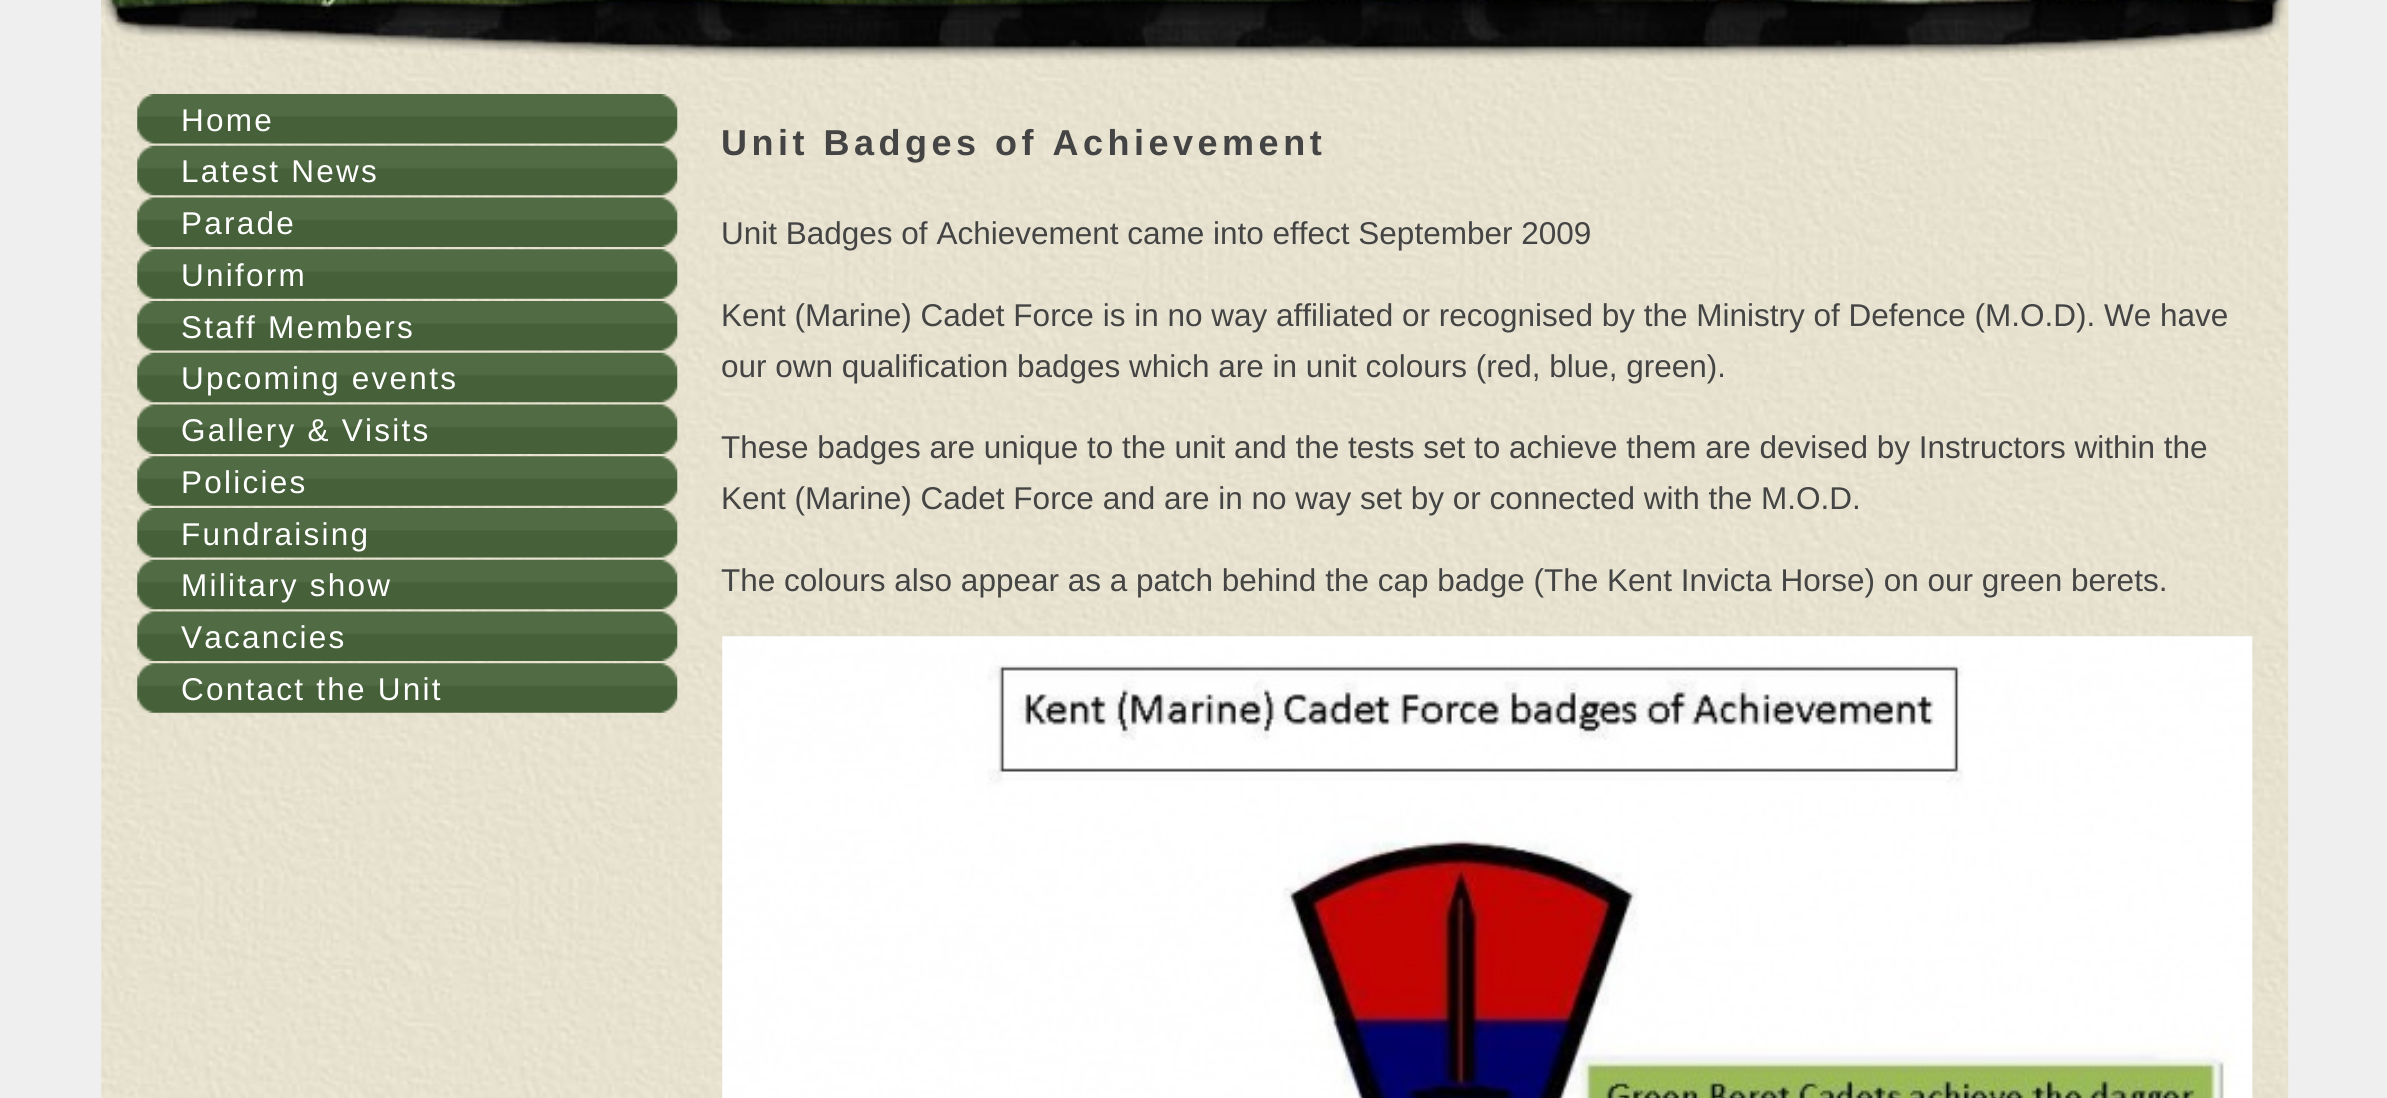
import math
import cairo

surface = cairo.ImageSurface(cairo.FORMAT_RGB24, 2387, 1098)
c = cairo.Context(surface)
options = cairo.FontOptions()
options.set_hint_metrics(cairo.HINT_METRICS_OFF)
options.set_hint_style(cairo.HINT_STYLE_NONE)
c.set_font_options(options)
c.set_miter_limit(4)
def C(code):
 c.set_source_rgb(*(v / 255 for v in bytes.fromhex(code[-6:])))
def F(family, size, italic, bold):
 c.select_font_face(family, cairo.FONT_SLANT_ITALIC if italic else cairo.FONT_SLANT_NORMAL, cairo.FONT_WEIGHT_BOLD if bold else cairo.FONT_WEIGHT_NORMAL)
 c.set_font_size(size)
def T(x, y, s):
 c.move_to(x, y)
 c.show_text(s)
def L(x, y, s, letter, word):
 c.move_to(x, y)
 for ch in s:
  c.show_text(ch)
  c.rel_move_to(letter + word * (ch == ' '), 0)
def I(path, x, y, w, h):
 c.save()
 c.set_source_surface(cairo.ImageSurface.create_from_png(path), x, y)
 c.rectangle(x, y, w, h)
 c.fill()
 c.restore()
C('efefef')
c.paint()
I('1.png',101,0,2188,1098)
I('2.png',101,0,2188,60)
I('3.png',137,94,541,50)
F('Liberation Sans',31.5,0,0)
C('ffffff')
L(181,131,'Home',2.25,0)
I('4.png',137,145,541,51)
L(181,182,'Latest News',2.25,0)
I('5.png',137,197,541,50)
L(181,234,'Parade',2.25,0)
I('6.png',137,249,541,50)
L(181,286,'Uniform',2.25,0)
I('7.png',137,301,541,50)
L(181,338,'Staff Members',2.25,0)
I('8.png',137,352,541,51)
L(181,389,'Upcoming events',2.25,0)
I('9.png',137,404,541,50)
L(181,441,'Gallery & Visits',2.25,0)
I('10.png',137,456,541,50)
L(181,493,'Policies',2.25,0)
I('11.png',137,508,541,50)
L(181,545,'Fundraising',2.25,0)
I('12.png',137,559,541,51)
L(181,596,'Military show',2.25,0)
I('13.png',137,611,541,50)
L(181,648,'Vacancies',2.25,0)
I('14.png',137,663,541,50)
L(181,700,'Contact the Unit',2.25,0)
F('Liberation Sans',36,0,1)
C('444444')
L(721,155,'Unit Badges of Achievement',4.5,0)
F('Liberation Sans',31.5,0,0)
T(721,244,'Unit Badges of Achievement came into effect September 2009')
T(721,326,'Kent (Marine) Cadet Force is in no way affiliated or recognised by the Ministry of Defence (M.O.D). We have')
T(721,377,'our own qualification badges which are in unit colours (red, blue, green).')
T(721,458,'These badges are unique to the unit and the tests set to achieve them are devised by Instructors within the')
T(721,509,'Kent (Marine) Cadet Force and are in no way set by or connected with the M.O.D.')
T(721,591,'The colours also appear as a patch behind the cap badge (The Kent Invicta Horse) on our green berets.')
I('15.png',722,636,1531,462)
surface.write_to_png('o.png')
